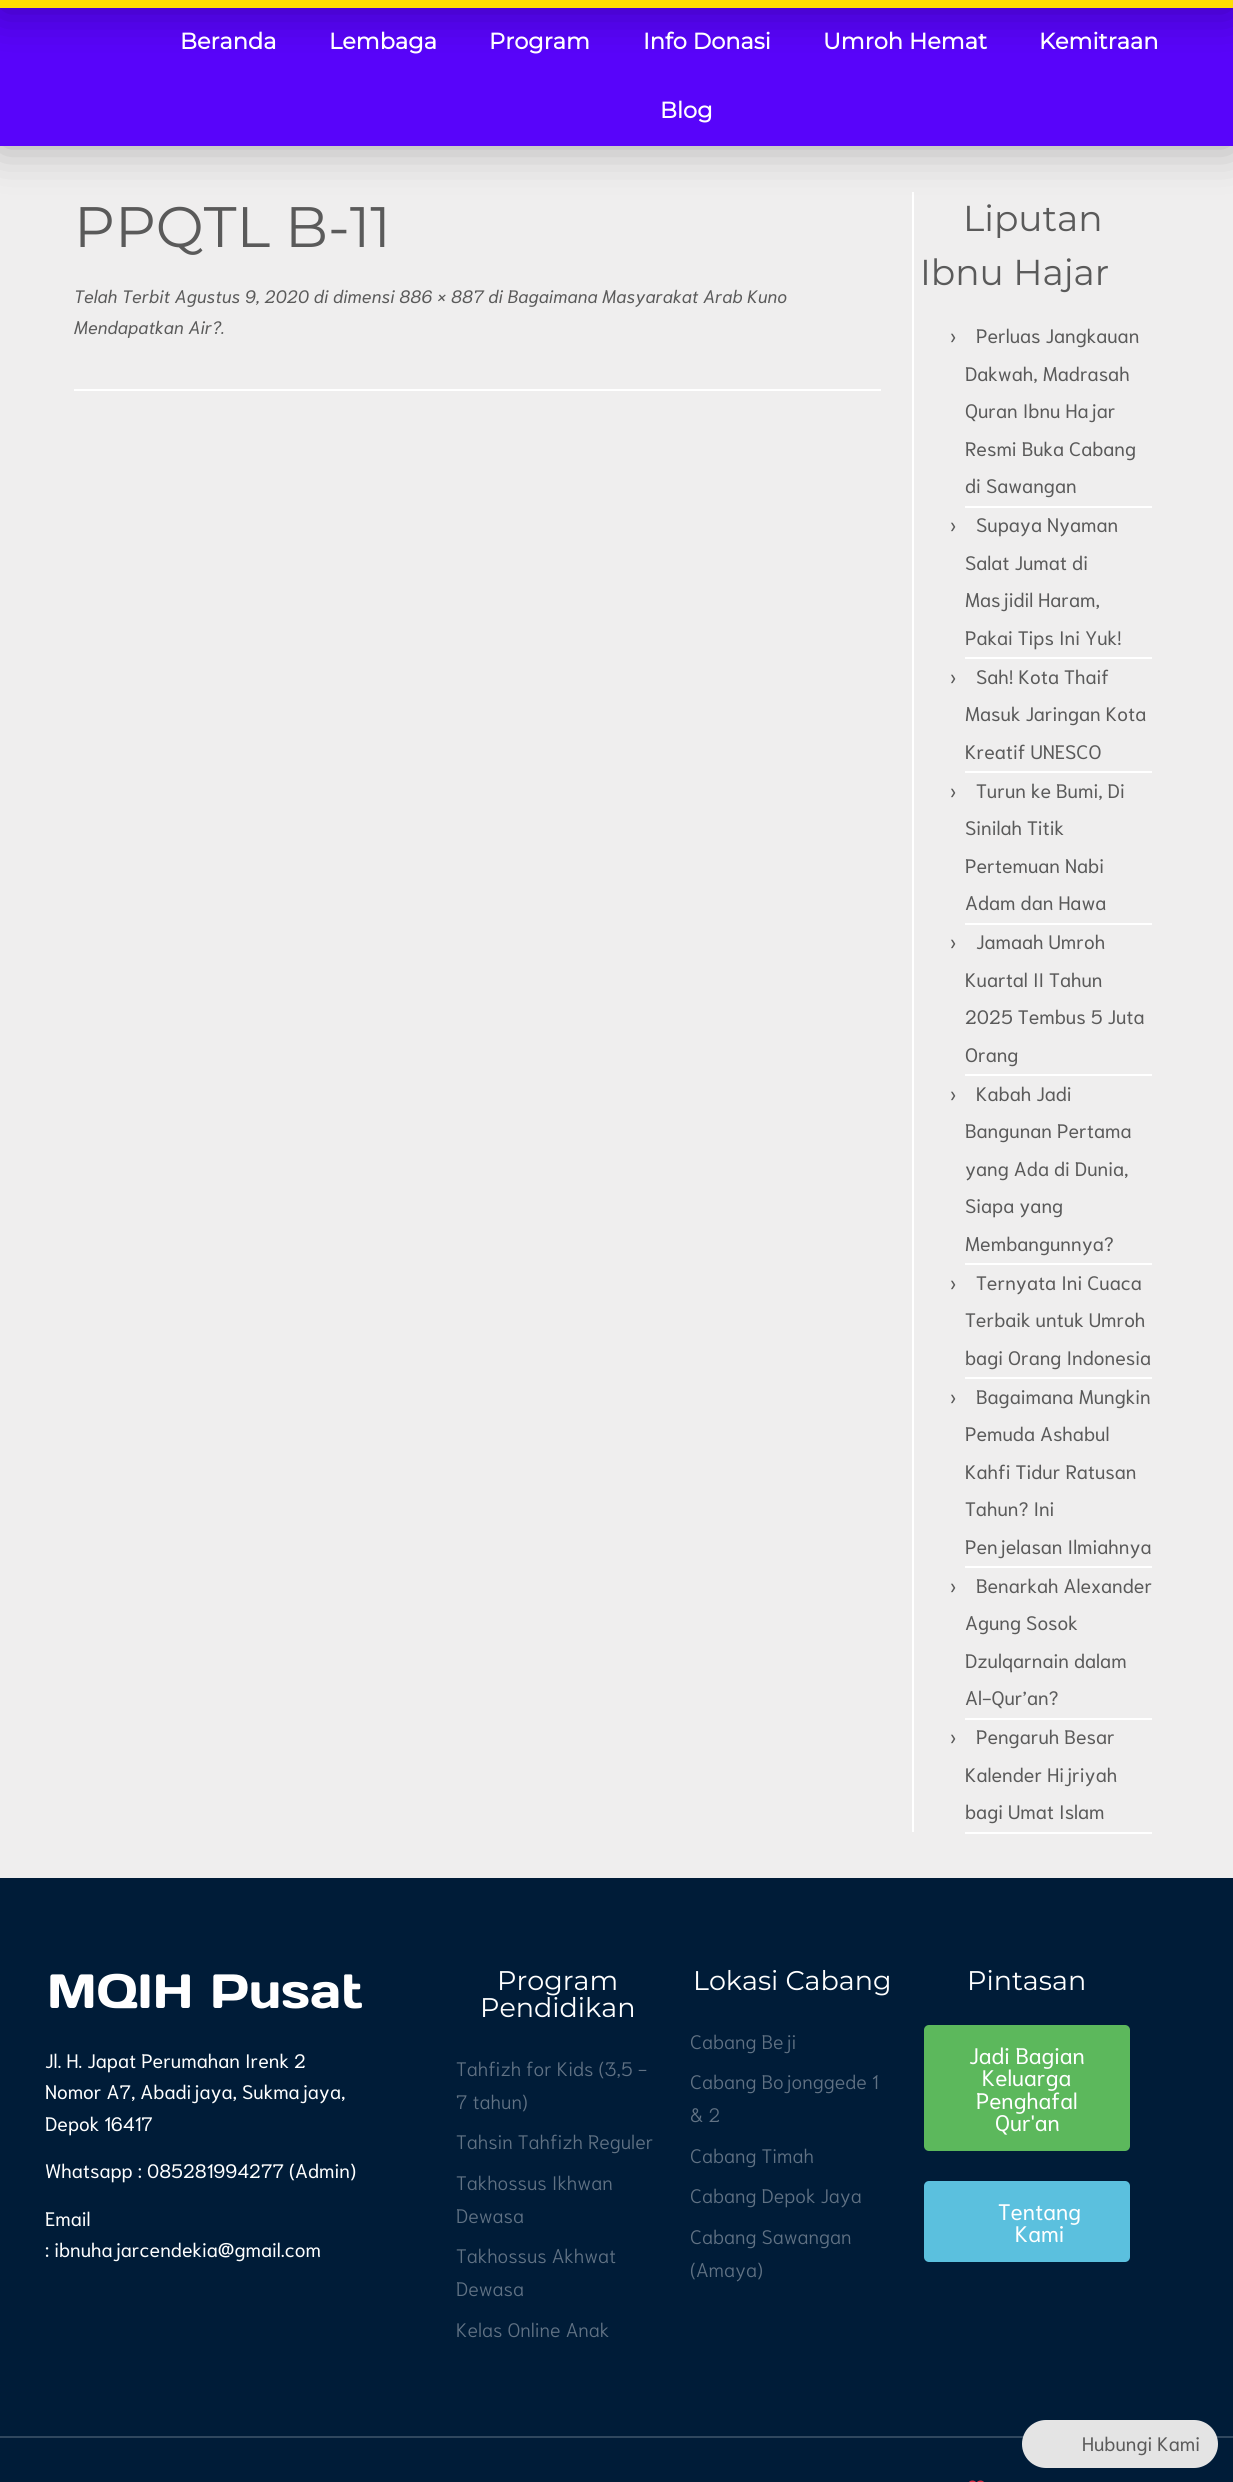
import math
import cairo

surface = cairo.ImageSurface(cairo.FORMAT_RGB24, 1233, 2482)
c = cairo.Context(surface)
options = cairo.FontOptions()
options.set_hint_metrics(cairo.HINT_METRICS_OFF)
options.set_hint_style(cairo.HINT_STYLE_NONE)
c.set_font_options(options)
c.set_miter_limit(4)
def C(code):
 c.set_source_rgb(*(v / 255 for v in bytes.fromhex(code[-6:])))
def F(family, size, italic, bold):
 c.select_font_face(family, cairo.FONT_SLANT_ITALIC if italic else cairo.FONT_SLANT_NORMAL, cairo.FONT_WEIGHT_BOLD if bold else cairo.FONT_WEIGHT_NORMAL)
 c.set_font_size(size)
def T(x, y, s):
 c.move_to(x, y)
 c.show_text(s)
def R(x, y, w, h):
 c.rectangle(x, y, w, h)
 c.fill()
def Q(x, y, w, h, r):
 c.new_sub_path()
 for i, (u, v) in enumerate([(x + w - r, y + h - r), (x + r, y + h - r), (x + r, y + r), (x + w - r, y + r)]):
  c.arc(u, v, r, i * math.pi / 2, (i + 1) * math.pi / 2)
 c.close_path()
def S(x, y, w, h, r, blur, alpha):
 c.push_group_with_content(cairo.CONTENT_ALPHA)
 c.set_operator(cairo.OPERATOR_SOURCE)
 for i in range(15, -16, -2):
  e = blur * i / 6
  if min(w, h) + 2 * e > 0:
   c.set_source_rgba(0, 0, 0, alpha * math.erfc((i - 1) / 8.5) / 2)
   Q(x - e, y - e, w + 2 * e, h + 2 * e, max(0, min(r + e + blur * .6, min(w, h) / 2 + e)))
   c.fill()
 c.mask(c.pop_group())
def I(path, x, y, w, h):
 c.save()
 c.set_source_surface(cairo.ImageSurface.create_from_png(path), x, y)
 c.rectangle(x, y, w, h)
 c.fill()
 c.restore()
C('efeeee')
c.paint()
C('ffffff')
R(912,192,2,1640)
C('000000')
S(0,8,1233,138,0,22.5,.3)
C('5804fa')
R(0,8,1233,138)
C('000000')
S(0,-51,1233,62,0,22.5,.3)
C('ffde01')
R(0,0,1233,8)
F('Montserrat',22.5,0,1)
C('ffffff')
T(180,49,'Beranda')
T(329,49,'Lembaga')
T(489,49,'Program')
T(643,49,'Info Donasi')
T(823,49,'Umroh Hemat')
T(1039,49,'Kemitraan')
T(660,118,'Blog')
F('Montserrat Thin',57,0,0)
C('5a5a5a')
T(74,247,'PPQTL B-11')
F('Niramit',18,1,0)
T(74,303,'Telah Terbit Agustus 9, 2020 di dimensi 886 × 887 di Bagaimana Masyarakat Arab Kuno')
T(74,334,'Mendapatkan Air?.')
C('ffffff')
R(74,389,807,2)
F('Montserrat Thin',36,0,0)
C('5a5a5a')
T(963,231,'Liputan')
T(920,285,'Ibnu Hajar')
F('Niramit',19.5,0,0)
T(950,343,'›')
T(976,343,'Perluas Jangkauan')
T(965,381,'Dakwah, Madrasah')
T(965,418,'Quran Ibnu Hajar')
T(965,456,'Resmi Buka Cabang')
T(965,493,'di Sawangan')
C('ffffff')
R(965,506,187,2)
C('5a5a5a')
T(950,532,'›')
T(976,532,'Supaya Nyaman')
T(965,570,'Salat Jumat di')
T(965,607,'Masjidil Haram,')
T(965,645,'Pakai Tips Ini Yuk!')
C('ffffff')
R(965,657,187,2)
C('5a5a5a')
T(950,684,'›')
T(976,684,'Sah! Kota Thaif')
T(965,721,'Masuk Jaringan Kota')
T(965,759,'Kreatif UNESCO')
C('ffffff')
R(965,771,187,2)
C('5a5a5a')
T(950,798,'›')
T(976,798,'Turun ke Bumi, Di')
T(965,835,'Sinilah Titik')
T(965,873,'Pertemuan Nabi')
T(965,910,'Adam dan Hawa')
C('ffffff')
R(965,923,187,2)
C('5a5a5a')
T(950,949,'›')
T(976,949,'Jamaah Umroh')
T(965,987,'Kuartal II Tahun')
T(965,1024,'2025 Tembus 5 Juta')
T(965,1062,'Orang')
C('ffffff')
R(965,1074,187,2)
C('5a5a5a')
T(950,1101,'›')
T(976,1101,'Kabah Jadi')
T(965,1138,'Bangunan Pertama')
T(965,1176,'yang Ada di Dunia,')
T(965,1213,'Siapa yang')
T(965,1251,'Membangunnya?')
C('ffffff')
R(965,1263,187,2)
C('5a5a5a')
T(950,1290,'›')
T(976,1290,'Ternyata Ini Cuaca')
T(965,1327,'Terbaik untuk Umroh')
T(965,1365,'bagi Orang Indonesia')
C('ffffff')
R(965,1377,187,2)
C('5a5a5a')
T(950,1404,'›')
T(976,1404,'Bagaimana Mungkin')
T(965,1441,'Pemuda Ashabul')
T(965,1479,'Kahfi Tidur Ratusan')
T(965,1516,'Tahun? Ini')
T(965,1554,'Penjelasan Ilmiahnya')
C('ffffff')
R(965,1566,187,2)
C('5a5a5a')
T(950,1593,'›')
T(976,1593,'Benarkah Alexander')
T(965,1630,'Agung Sosok')
T(965,1668,'Dzulqarnain dalam')
T(965,1705,'Al-Qur’an?')
C('ffffff')
R(965,1718,187,2)
C('5a5a5a')
T(950,1744,'›')
T(976,1744,'Pengaruh Besar')
T(965,1782,'Kalender Hijriyah')
T(965,1819,'bagi Umat Islam')
C('ffffff')
R(965,1832,187,2)
C('001c38')
R(0,1878,1233,558)
F('Days One',48,0,0)
C('ffffff')
T(47,2008,'MQIH Pusat')
F('Niramit',19.5,0,0)
T(45,2068,'Jl. H. Japat Perumahan Irenk 2')
T(45,2099,'Nomor A7, Abadijaya, Sukmajaya,')
T(45,2131,'Depok 16417')
T(45,2178,'Whatsapp : 085281994277 (Admin)')
T(45,2226,'Email')
T(45,2257,': ibnuhajarcendekia@gmail.com')
F('Montserrat Thin',27,0,0)
T(497,1990,'Program')
T(480,2017,'Pendidikan')
F('Niramit Light',19.5,0,0)
C('617284')
T(456,2076,'Tahfizh for Kids (3,5 -')
T(456,2109,'7 tahun)')
T(456,2149,'Tahsin Tahfizh Reguler')
T(456,2190,'Takhossus Ikhwan')
T(456,2223,'Dewasa')
T(456,2263,'Takhossus Akhwat')
T(456,2296,'Dewasa')
T(456,2337,'Kelas Online Anak')
F('Montserrat Thin',27,0,0)
C('ffffff')
T(693,1990,'Lokasi Cabang')
F('Niramit Light',19.5,0,0)
C('617284')
T(690,2049,'Cabang Beji')
T(690,2089,'Cabang Bojonggede 1')
T(690,2122,'& 2')
T(690,2163,'Cabang Timah')
T(690,2203,'Cabang Depok Jaya')
T(690,2244,'Cabang Sawangan')
T(690,2277,'(Amaya)')
F('Montserrat Thin',27,0,0)
C('ffffff')
T(967,1990,'Pintasan')
C('5cb85c')
Q(924,2025,206,126,5)
c.fill()
F('Niramit',22.5,0,0)
C('ffffff')
T(969,2064,'Jadi Bagian')
T(982,2086,'Keluarga')
T(976,2109,'Penghafal')
T(995,2131,'Qur\'an')
C('5bc0de')
Q(924,2181,206,81,5)
c.fill()
C('ffffff')
T(998,2220,'Tentang')
T(1015,2242,'Kami')
C('001c38')
R(0,2438,1233,44)
C('30475e')
R(0,2436,1233,2)
I('1.png',969,2480,15,2)
C('e4e4e4')
Q(1022,2420,196,48,24)
c.fill()
F('Niramit',19.5,0,0)
C('5a5a5a')
T(1082,2451,'Hubungi Kami')
surface.write_to_png('o.png')
